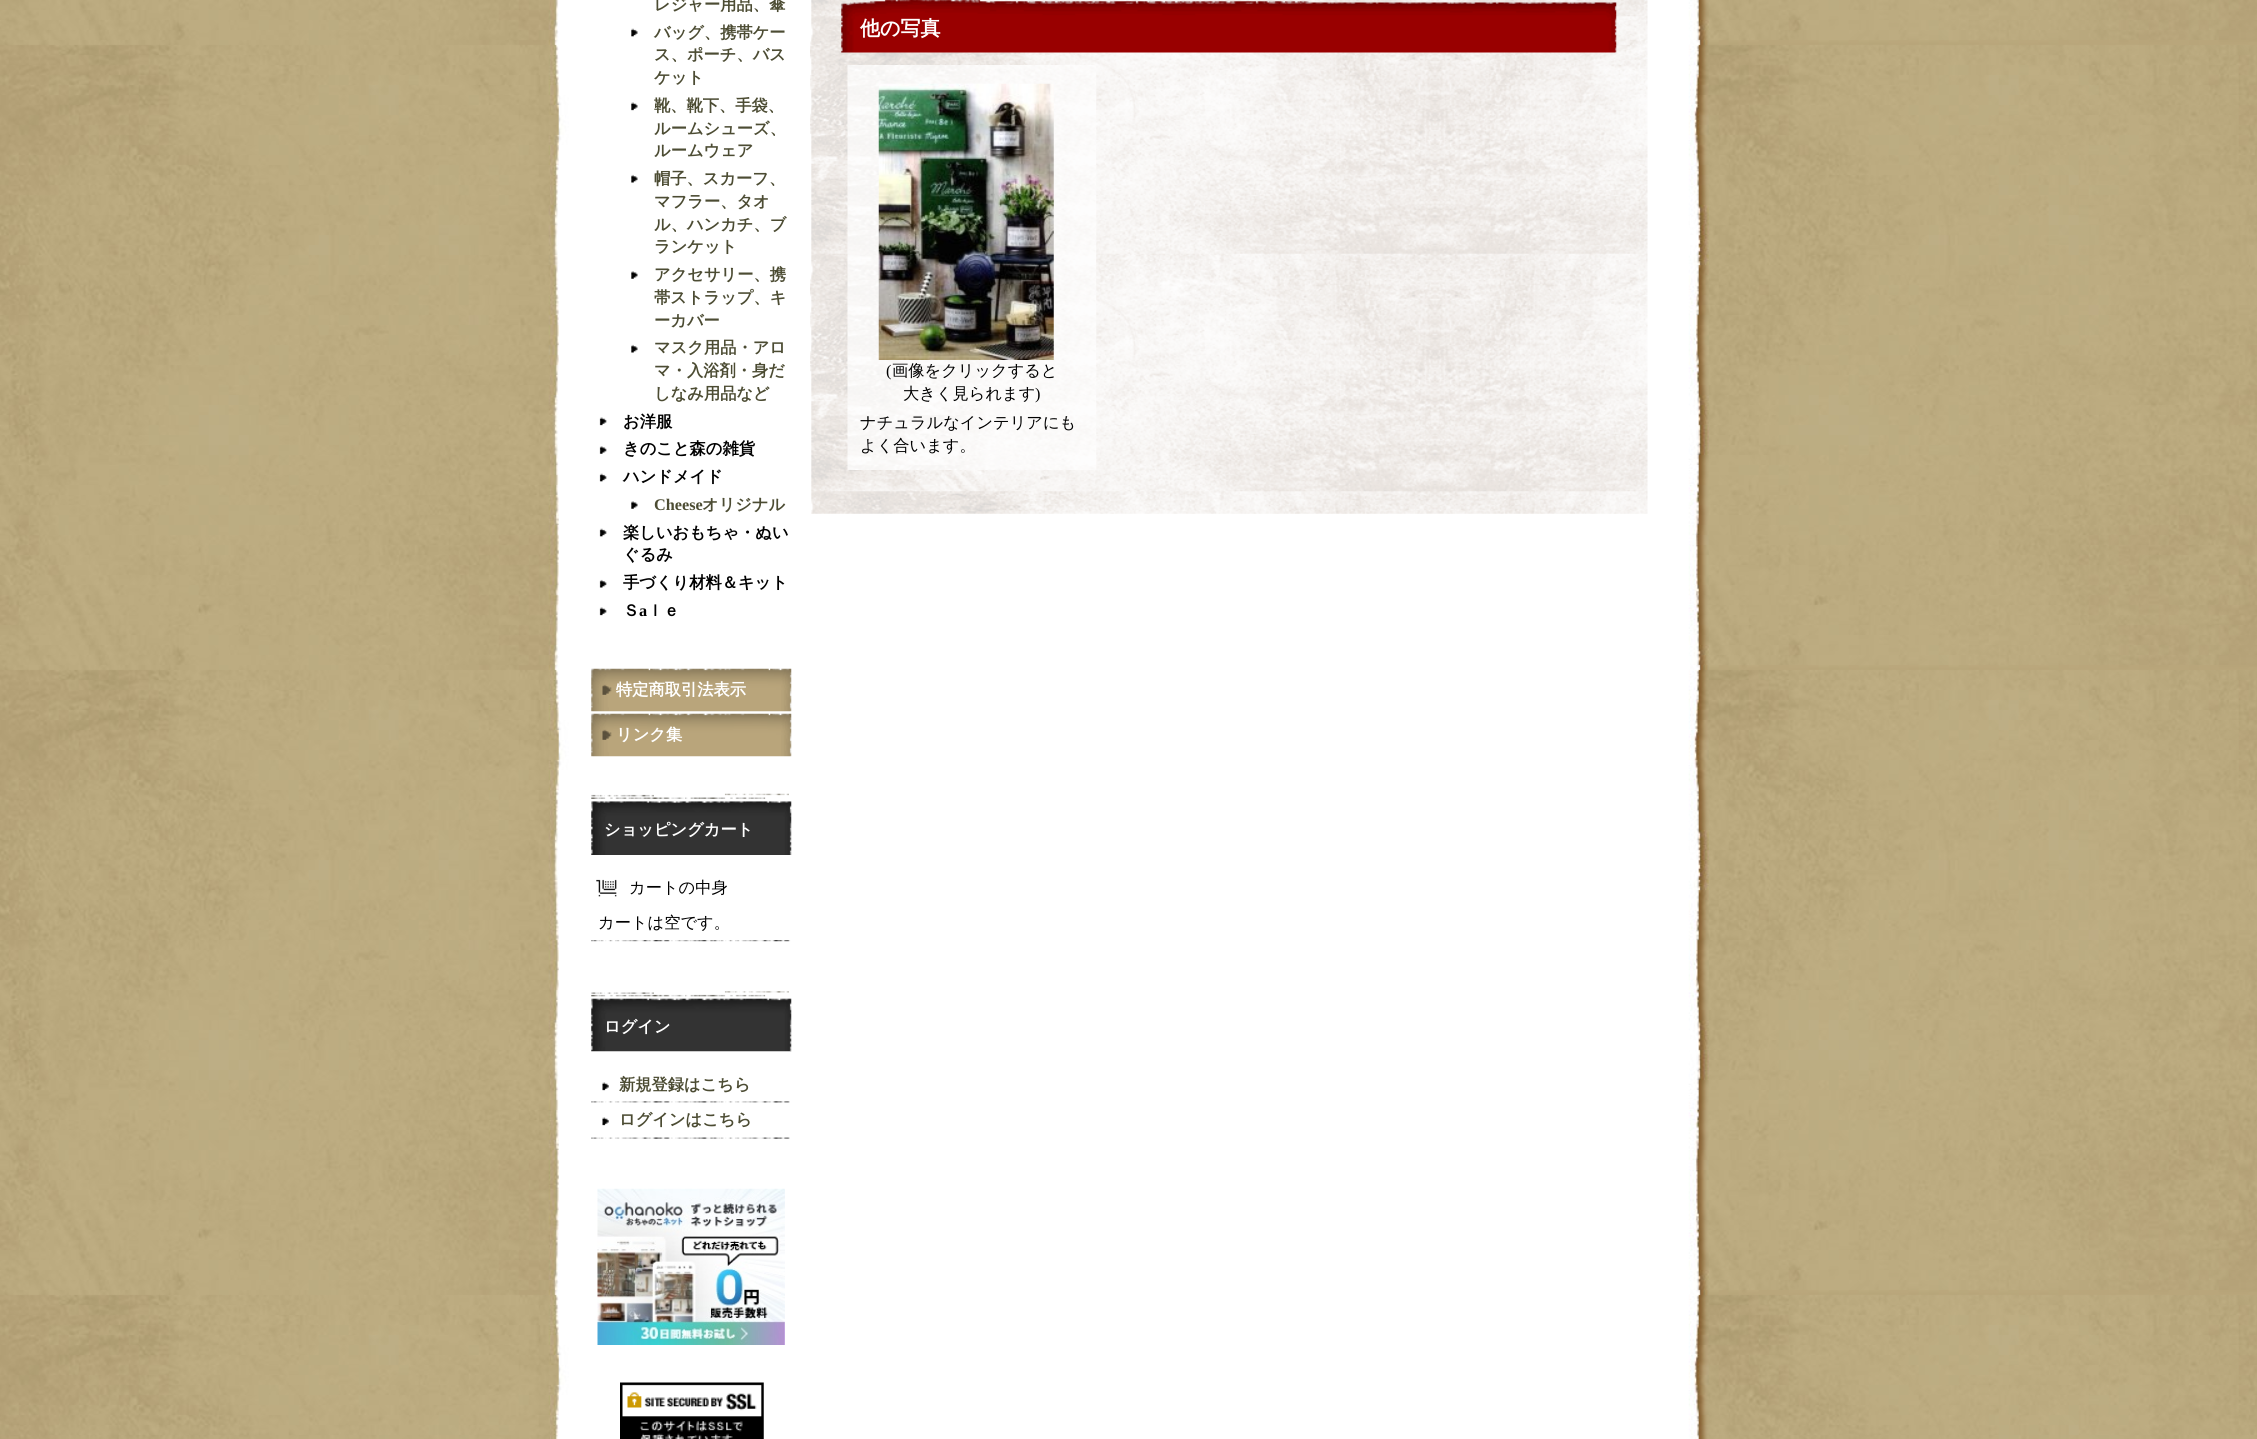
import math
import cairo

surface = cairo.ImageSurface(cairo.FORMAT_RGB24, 2257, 1439)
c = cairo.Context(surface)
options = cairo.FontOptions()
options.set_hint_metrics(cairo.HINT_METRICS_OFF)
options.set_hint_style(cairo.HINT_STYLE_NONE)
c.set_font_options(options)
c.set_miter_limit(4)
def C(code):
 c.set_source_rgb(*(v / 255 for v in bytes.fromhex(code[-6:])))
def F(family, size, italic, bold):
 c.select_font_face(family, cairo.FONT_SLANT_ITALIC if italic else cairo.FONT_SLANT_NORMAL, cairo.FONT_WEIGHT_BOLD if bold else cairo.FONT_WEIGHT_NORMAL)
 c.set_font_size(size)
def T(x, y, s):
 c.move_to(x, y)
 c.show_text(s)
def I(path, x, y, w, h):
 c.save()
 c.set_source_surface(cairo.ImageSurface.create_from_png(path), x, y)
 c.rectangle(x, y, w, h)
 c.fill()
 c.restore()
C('ffffff')
c.paint()
I('1.png',0,0,2257,1439)
F('WenQuanYi Zen Hei',16.25,0,1)
C('4c4c33')
T(654,10,'レジャー用品、傘')
I('2.png',631,28,7,9)
T(654,38,'バッグ、携帯ケー')
T(654,60,'ス、ポーチ、バス')
T(654,83,'ケット')
I('3.png',631,102,7,9)
T(654,111,'靴、靴下、手袋、')
T(654,134,'ルームシューズ、')
T(654,156,'ルームウェア')
I('4.png',631,174,7,9)
T(654,184,'帽子、スカーフ、')
T(654,207,'マフラー、タオ')
T(654,230,'ル、ハンカチ、ブ')
T(654,252,'ランケット')
I('5.png',631,271,7,8)
T(654,280,'アクセサリー、携')
T(654,303,'帯ストラップ、キ')
T(654,326,'ーカバー')
I('4.png',631,344,7,9)
T(654,353,'マスク用品・アロ')
T(654,376,'マ・入浴剤・身だ')
T(654,399,'しなみ用品など')
I('6.png',599,417,8,9)
C('000000')
T(623,427,'お洋服')
I('7.png',599,446,8,8)
T(623,454,'きのこと森の雑貨')
I('8.png',599,473,8,9)
T(623,482,'ハンドメイド')
I('5.png',631,501,7,8)
F('Liberation Serif',16.25,0,1)
C('4c4c33')
T(654,510,'Cheese')
F('WenQuanYi Zen Hei',16.25,0,1)
T(702,510,'オリジナル')
I('8.png',599,528,8,9)
C('000000')
T(623,538,'楽しいおもちゃ・ぬい')
T(623,560,'ぐるみ')
I('9.png',599,579,8,9)
T(623,588,'手づくり材料＆キット')
I('6.png',599,607,8,9)
T(623,616,'Ｓ')
F('Liberation Serif',16.25,0,1)
T(639,616,'a')
F('WenQuanYi Zen Hei',16.25,0,1)
T(647,616,'ｌｅ')
I('10.png',591,668,201,44)
C('ffffff')
T(616,695,'特定商取引法表示')
I('10.png',591,713,201,44)
T(616,740,'リンク集')
I('11.png',591,793,201,62)
T(604,835,'ショッピングカート')
I('12.png',596,879,21,18)
F('WenQuanYi Zen Hei Medium',16.25,0,0)
C('000000')
T(629,893,'カートの中身')
I('13.png',591,940,200,2)
T(598,928,'カートは空です。')
I('14.png',591,991,201,61)
F('WenQuanYi Zen Hei',16.25,0,1)
C('ffffff')
T(604,1032,'ログイン')
I('15.png',591,1101,199,2)
I('16.png',602,1082,7,9)
C('4c4c33')
T(619,1090,'新規登録はこちら')
I('17.png',591,1137,199,2)
I('16.png',602,1117,7,9)
T(619,1125,'ログインはこちら')
I('18.png',597,1188,188,157)
I('19.png',620,1382,144,57)
I('20.png',810,0,838,514)
I('21.png',841,0,776,53)
F('WenQuanYi Zen Hei',20,0,1)
C('ffffff')
T(860,35,'他の写真')
I('22.png',847,65,250,405)
I('23.png',878,83,176,277)
F('Liberation Serif',16.25,0,0)
C('000000')
T(886,376,'(')
F('WenQuanYi Zen Hei Medium',16.25,0,0)
T(892,376,'画像をクリックすると')
T(903,399,'大きく見られます')
F('Liberation Serif',16.25,0,0)
T(1035,399,')')
F('WenQuanYi Zen Hei Medium',16.25,0,0)
T(860,428,'ナチュラルなインテリアにも')
T(860,451,'よく合います。')
surface.write_to_png('o.png')
